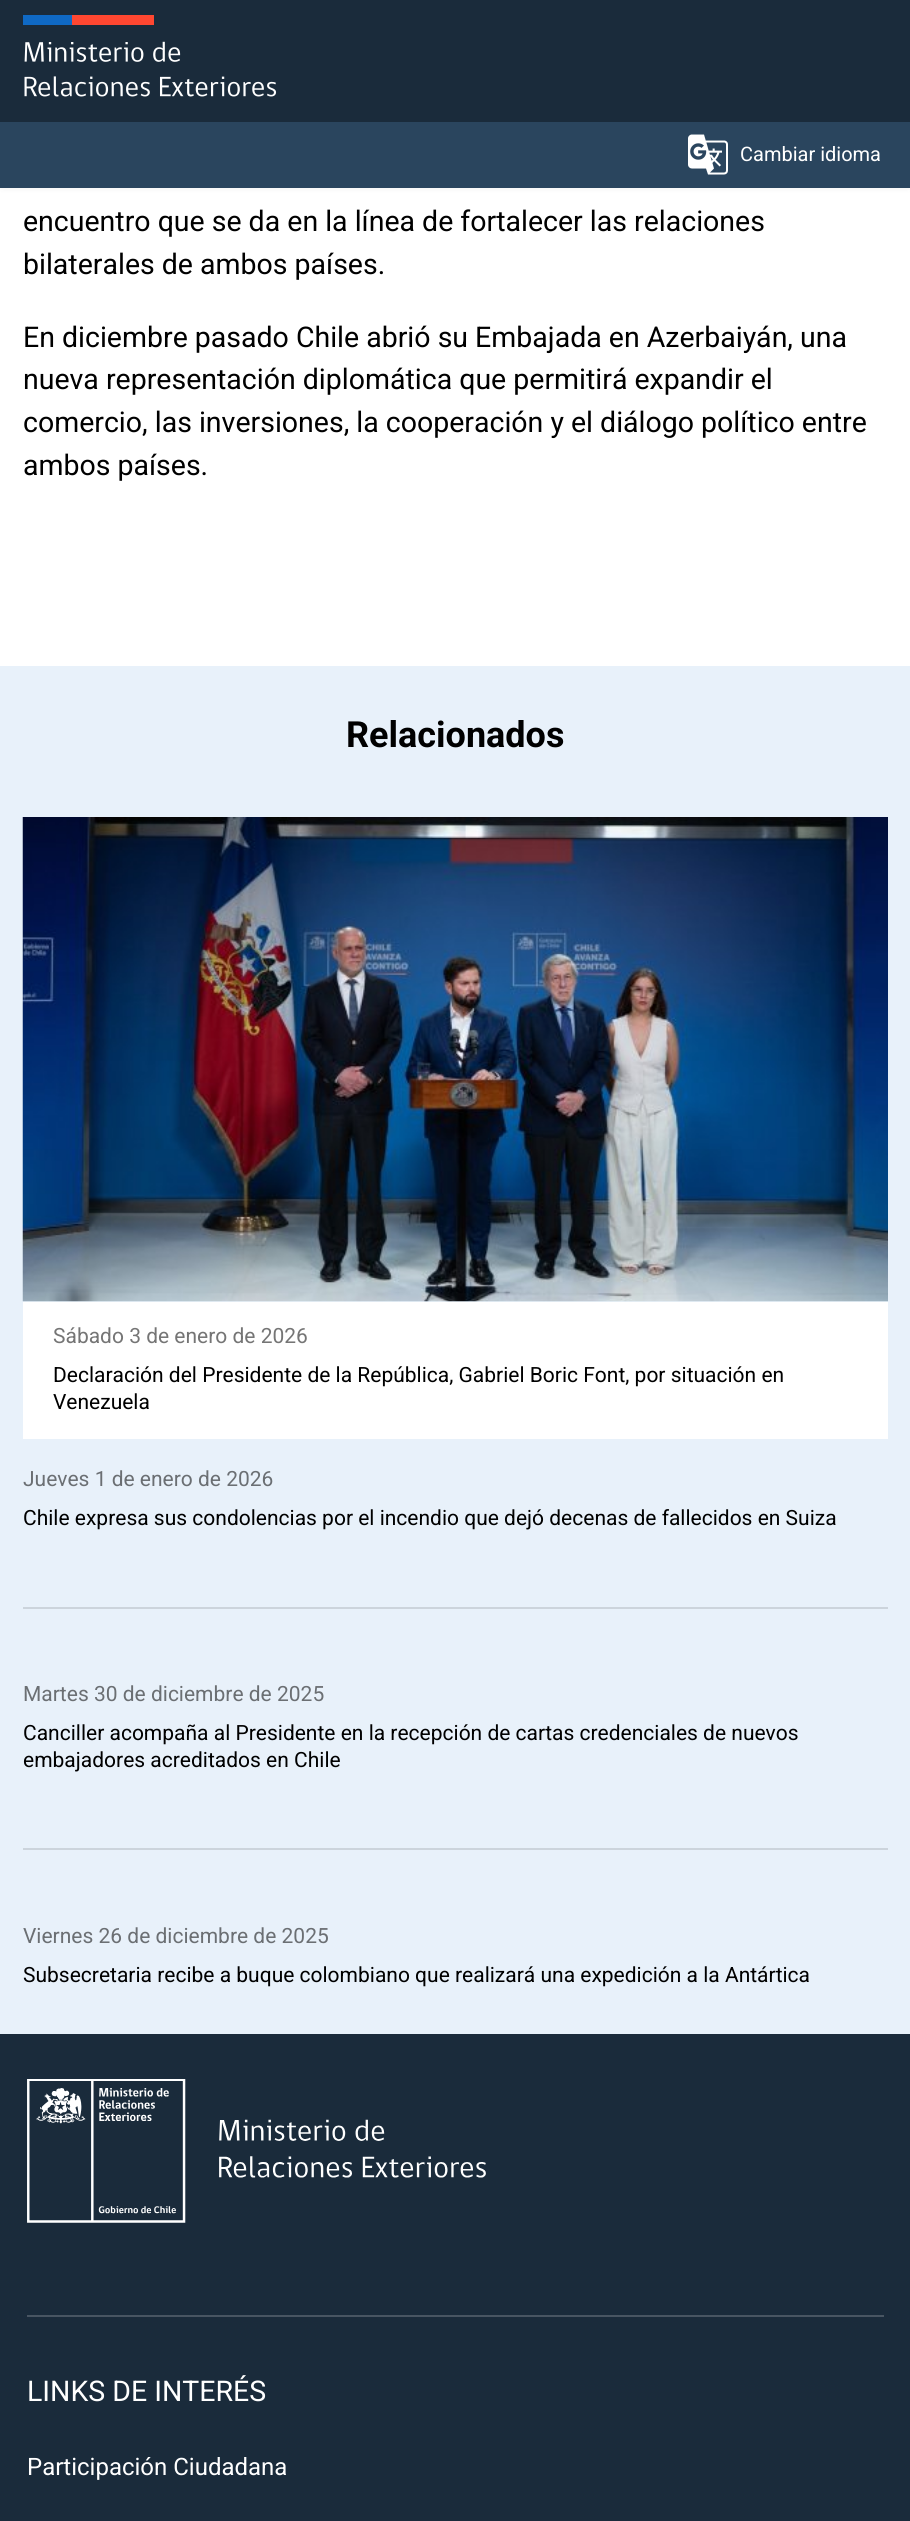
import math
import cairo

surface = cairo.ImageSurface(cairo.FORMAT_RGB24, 910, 2521)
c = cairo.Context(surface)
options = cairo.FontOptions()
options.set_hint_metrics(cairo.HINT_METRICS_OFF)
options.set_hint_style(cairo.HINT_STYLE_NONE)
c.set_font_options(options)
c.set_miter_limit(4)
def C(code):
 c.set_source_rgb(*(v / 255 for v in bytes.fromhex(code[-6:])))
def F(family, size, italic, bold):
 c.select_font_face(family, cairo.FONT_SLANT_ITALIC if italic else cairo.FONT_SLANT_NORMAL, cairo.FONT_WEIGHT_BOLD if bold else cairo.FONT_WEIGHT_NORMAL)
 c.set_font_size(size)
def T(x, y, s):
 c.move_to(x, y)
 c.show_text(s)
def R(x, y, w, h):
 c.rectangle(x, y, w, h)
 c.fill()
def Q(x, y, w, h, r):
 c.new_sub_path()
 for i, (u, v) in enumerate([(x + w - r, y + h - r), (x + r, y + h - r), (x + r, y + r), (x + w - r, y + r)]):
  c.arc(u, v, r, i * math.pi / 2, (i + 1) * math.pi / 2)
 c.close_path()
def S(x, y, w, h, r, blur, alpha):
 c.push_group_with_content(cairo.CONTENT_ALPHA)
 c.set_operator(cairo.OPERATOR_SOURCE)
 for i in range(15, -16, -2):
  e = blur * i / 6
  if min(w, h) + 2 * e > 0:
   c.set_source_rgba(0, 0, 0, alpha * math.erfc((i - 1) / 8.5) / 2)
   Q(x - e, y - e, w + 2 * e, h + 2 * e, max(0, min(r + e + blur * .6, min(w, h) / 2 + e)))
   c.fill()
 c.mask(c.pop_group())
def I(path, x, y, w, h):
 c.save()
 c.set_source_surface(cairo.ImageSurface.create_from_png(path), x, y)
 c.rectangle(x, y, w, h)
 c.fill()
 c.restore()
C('ffffff')
c.paint()
C('000000')
S(2,2,907,184,0,4,.1)
C('1a2b3b')
R(0,0,910,122)
I('1.png',23,15,254,82)
C('2a455e')
R(0,122,910,66)
I('2.png',688,134,40,41)
F('Roboto',20,0,0)
C('ffffff')
T(740,161,'Cambiar idioma')
F('Roboto',28.5,0,0)
C('000000')
T(23,231,'encuentro que se da en la línea de fortalecer las relaciones')
T(23,274,'bilaterales de ambos países.')
T(23,347,'En diciembre pasado Chile abrió su Embajada en Azerbaiyán, una')
T(23,389,'nueva representación diplomática que permitirá expandir el')
T(23,432,'comercio, las inversiones, la cooperación y el diálogo político entre')
T(23,475,'ambos países.')
C('e8f1fa')
R(0,666,910,1368)
F('Roboto',36,0,1)
C('000000')
T(346,747,'Relacionados')
I('3.png',22,817,866,485)
C('ffffff')
R(23,1302,865,137)
F('Roboto',21,0,0)
C('757575')
T(53,1343,'Sábado 3 de enero de 2026')
C('000000')
T(53,1382,'Declaración del Presidente de la República, Gabriel Boric Font, por situación en')
T(53,1409,'Venezuela')
C('6b6f73')
T(23,1486,'Jueves 1 de enero de 2026')
C('000000')
T(23,1525,'Chile expresa sus condolencias por el incendio que dejó decenas de fallecidos en Suiza')
C('ccd4dc')
R(23,1607,865,2)
C('6b6f73')
T(23,1701,'Martes 30 de diciembre de 2025')
C('000000')
T(23,1740,'Canciller acompaña al Presidente en la recepción de cartas credenciales de nuevos')
T(23,1767,'embajadores acreditados en Chile')
C('ccd4dc')
R(23,1848,865,2)
C('6b6f73')
T(23,1943,'Viernes 26 de diciembre de 2025')
C('000000')
T(23,1982,'Subsecretaria recibe a buque colombiano que realizará una expedición a la Antártica')
C('1a2b3b')
R(0,2034,910,487)
C('485562')
R(27,2315,857,2)
I('4.png',27,2079,459,144)
F('Roboto',28.5,0,0)
C('ffffff')
T(27,2401,'LINKS DE INTERÉS')
F('Roboto',24,0,0)
T(27,2475,'Participación Ciudadana')
surface.write_to_png('o.png')
